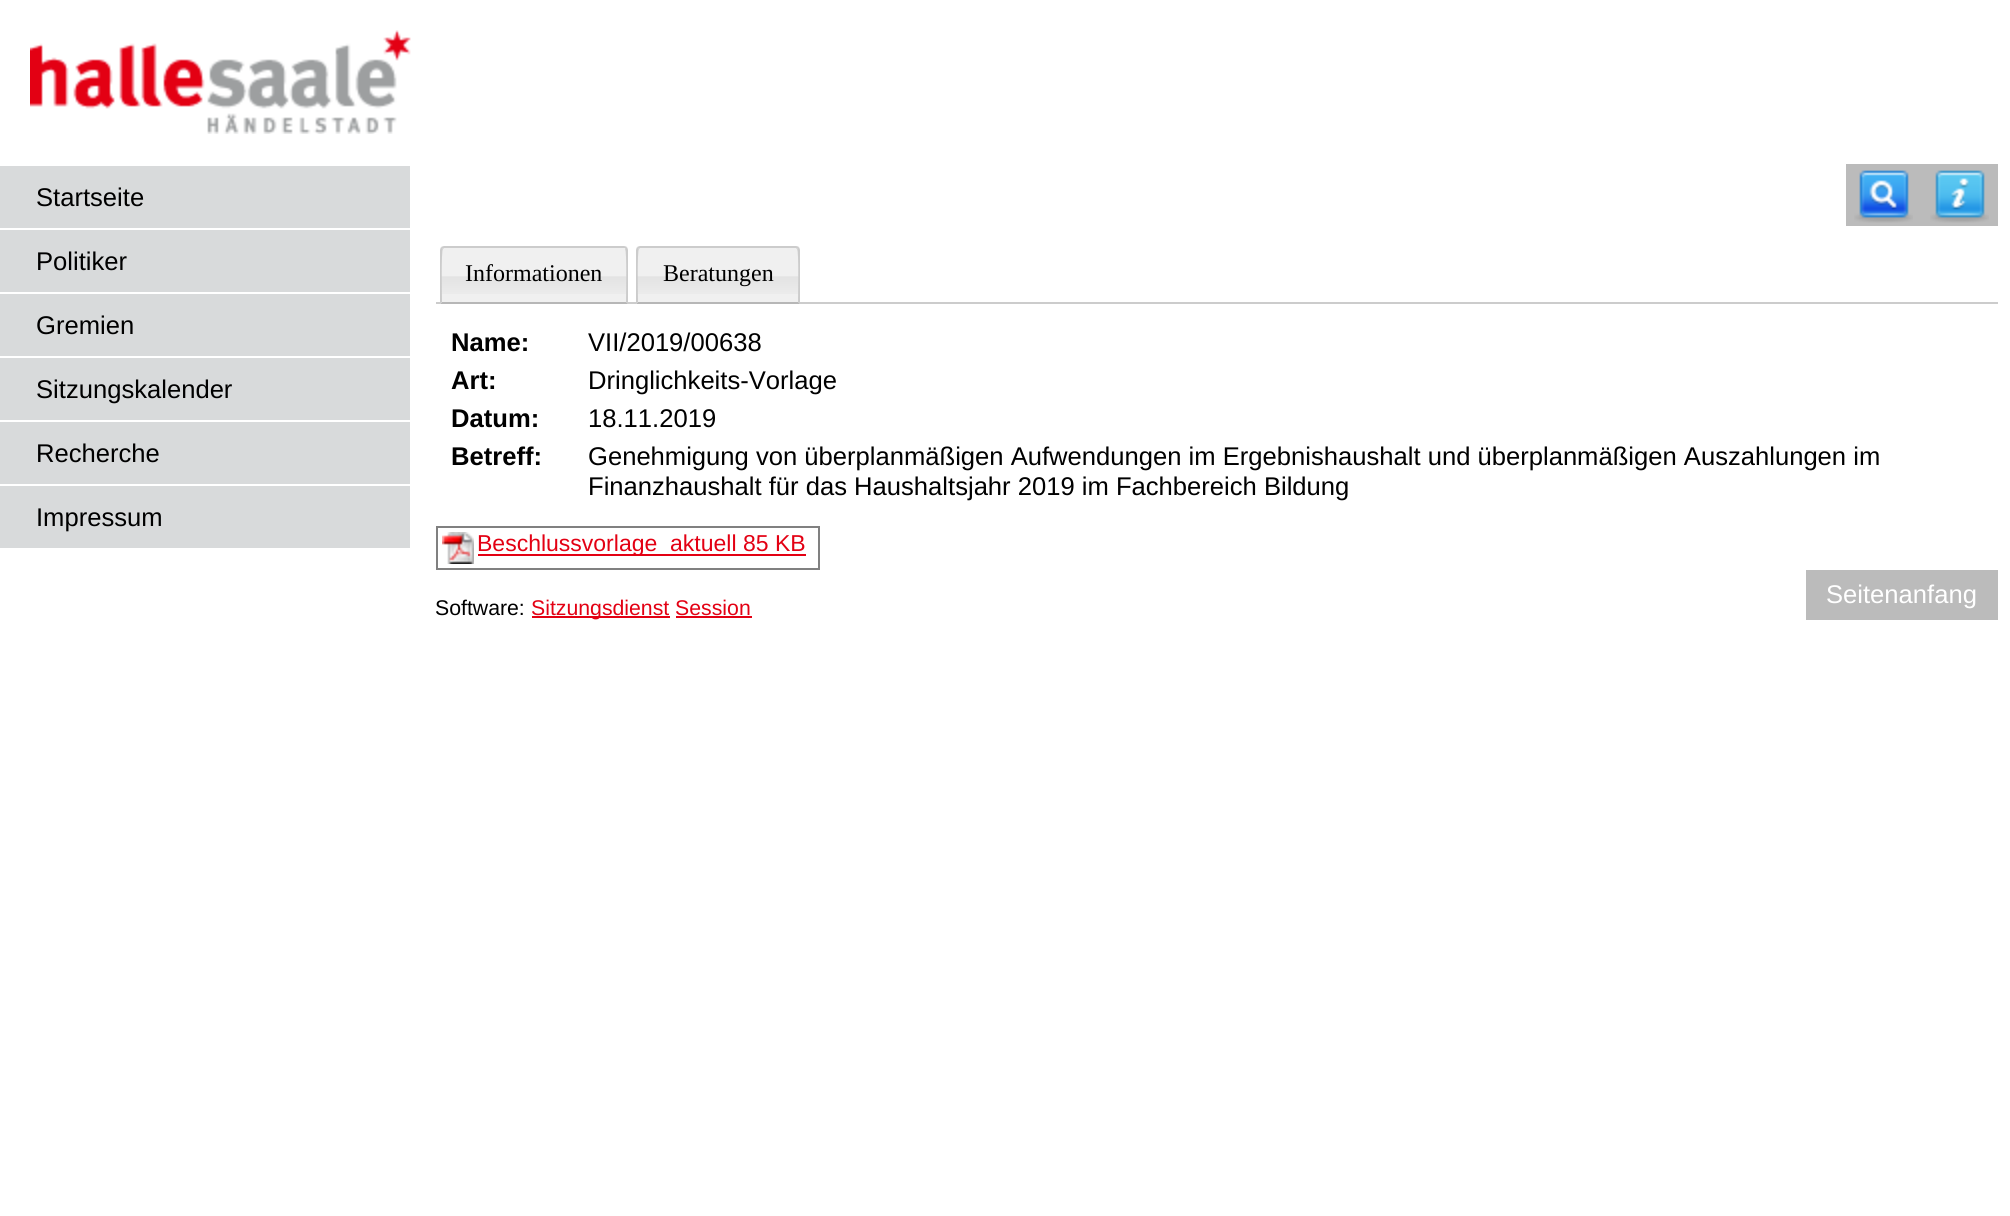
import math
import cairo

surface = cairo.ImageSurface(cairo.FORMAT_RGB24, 2010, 1216)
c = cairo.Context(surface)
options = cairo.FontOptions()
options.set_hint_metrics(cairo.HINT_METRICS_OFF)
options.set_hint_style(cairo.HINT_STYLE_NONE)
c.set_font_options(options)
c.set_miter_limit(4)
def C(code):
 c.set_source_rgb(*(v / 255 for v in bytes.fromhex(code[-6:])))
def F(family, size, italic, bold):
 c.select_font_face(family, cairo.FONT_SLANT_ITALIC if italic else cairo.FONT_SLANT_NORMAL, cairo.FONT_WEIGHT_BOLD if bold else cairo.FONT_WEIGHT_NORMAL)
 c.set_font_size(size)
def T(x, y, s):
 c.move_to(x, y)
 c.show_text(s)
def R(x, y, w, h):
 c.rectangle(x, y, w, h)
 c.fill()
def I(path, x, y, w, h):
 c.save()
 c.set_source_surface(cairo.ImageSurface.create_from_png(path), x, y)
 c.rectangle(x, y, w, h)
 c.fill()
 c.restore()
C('ffffff')
c.paint()
I('1.png',30,30,381,104)
C('d8dadb')
R(0,166,410,62)
F('Liberation Sans',25.6,0,0)
C('000000')
T(36,206,'Startseite')
C('d8dadb')
R(0,230,410,62)
C('000000')
T(36,270,'Politiker')
C('d8dadb')
R(0,294,410,62)
C('000000')
T(36,334,'Gremien')
C('d8dadb')
R(0,358,410,62)
C('000000')
T(36,398,'Sitzungskalender')
C('d8dadb')
R(0,422,410,62)
C('000000')
T(36,462,'Recherche')
C('d8dadb')
R(0,486,410,62)
C('000000')
T(36,526,'Impressum')
C('bbbbbb')
R(1846,164,152,62)
I('2.png',1854,170,59,53)
I('3.png',1930,170,59,53)
C('cccccc')
R(436,302,1562,2)
C('f0f0f0')
c.new_path()
c.move_to(444,246)
c.line_to(624,246)
c.curve_to(626,246,628,248,628,250)
c.line_to(628,304)
c.line_to(440,304)
c.line_to(440,250)
c.curve_to(440,248,442,246,444,246)
c.close_path()
c.fill()
I('4.png',441,276,186,18)
C('cccccc')
c.new_path()
c.move_to(444,246)
c.line_to(441,247)
c.line_to(443,249)
c.line_to(444,248)
c.line_to(625,248)
c.line_to(625,249)
c.line_to(627,247)
c.line_to(624,246)
c.close_path()
c.fill()
c.new_path()
c.move_to(628,304)
c.line_to(628,250)
c.line_to(627,247)
c.line_to(625,249)
c.curve_to(627,250,626,296,626,302)
c.close_path()
c.fill()
C('b7b7b7')
c.new_path()
c.move_to(628,304)
c.line_to(626,302)
c.line_to(442,302)
c.line_to(440,304)
c.close_path()
c.fill()
C('cccccc')
c.new_path()
c.move_to(440,304)
c.line_to(442,302)
c.curve_to(442,296,441,250,443,249)
c.line_to(441,247)
c.line_to(440,250)
c.close_path()
c.fill()
F('Liberation Serif',24,0,0)
C('000000')
T(465,281,'Informationen')
C('f0f0f0')
c.new_path()
c.move_to(640,246)
c.line_to(796,246)
c.curve_to(798,246,800,248,800,250)
c.line_to(800,304)
c.line_to(636,304)
c.line_to(636,250)
c.curve_to(636,248,638,246,640,246)
c.close_path()
c.fill()
I('5.png',637,276,162,18)
C('cccccc')
c.new_path()
c.move_to(640,246)
c.line_to(637,247)
c.line_to(639,249)
c.line_to(640,248)
c.line_to(796,248)
c.line_to(797,249)
c.line_to(799,247)
c.line_to(796,246)
c.close_path()
c.fill()
c.new_path()
c.move_to(800,304)
c.line_to(800,250)
c.line_to(799,247)
c.line_to(797,249)
c.curve_to(799,250,798,296,798,302)
c.close_path()
c.fill()
C('b7b7b7')
c.new_path()
c.move_to(800,304)
c.line_to(798,302)
c.line_to(638,302)
c.line_to(636,304)
c.close_path()
c.fill()
C('cccccc')
c.new_path()
c.move_to(636,304)
c.line_to(638,302)
c.curve_to(638,296,637,250,639,249)
c.line_to(637,247)
c.line_to(636,250)
c.close_path()
c.fill()
C('000000')
T(663,281,'Beratungen')
F('Liberation Sans',25.6,0,1)
T(451,351,'Name:')
F('Liberation Sans',25.6,0,0)
T(588,351,'VII/2019/00638')
F('Liberation Sans',25.6,0,1)
T(451,389,'Art:')
F('Liberation Sans',25.6,0,0)
T(588,389,'Dringlichkeits-Vorlage')
F('Liberation Sans',25.6,0,1)
T(451,427,'Datum:')
F('Liberation Sans',25.6,0,0)
T(588,427,'18.11.2019')
F('Liberation Sans',25.6,0,1)
T(451,465,'Betreff:')
F('Liberation Sans',25.6,0,0)
T(588,465,'Genehmigung von überplanmäßigen Aufwendungen im Ergebnishaushalt und überplanmäßigen Auszahlungen im')
T(588,495,'Finanzhaushalt für das Haushaltsjahr 2019 im Fachbereich Bildung')
c.rectangle(437,527,382,42)
C('808080')
c.stroke()
I('6.png',442,532,32,32)
C('e30013')
R(478,554,328,2)
F('Liberation Sans',23,0,0)
T(477,551,'Beschlussvorlage_aktuell 85 KB')
F('Liberation Sans',21.25,0,0)
C('000000')
T(435,615,'Software:')
C('e30013')
R(532,616,138,2)
T(531,615,'Sitzungsdienst Session')
R(676,616,76,2)
C('bbbbbb')
R(1806,570,192,50)
F('Liberation Sans',25.6,0,0)
C('ffffff')
T(1826,603,'Seitenanfang')
surface.write_to_png('o.png')
